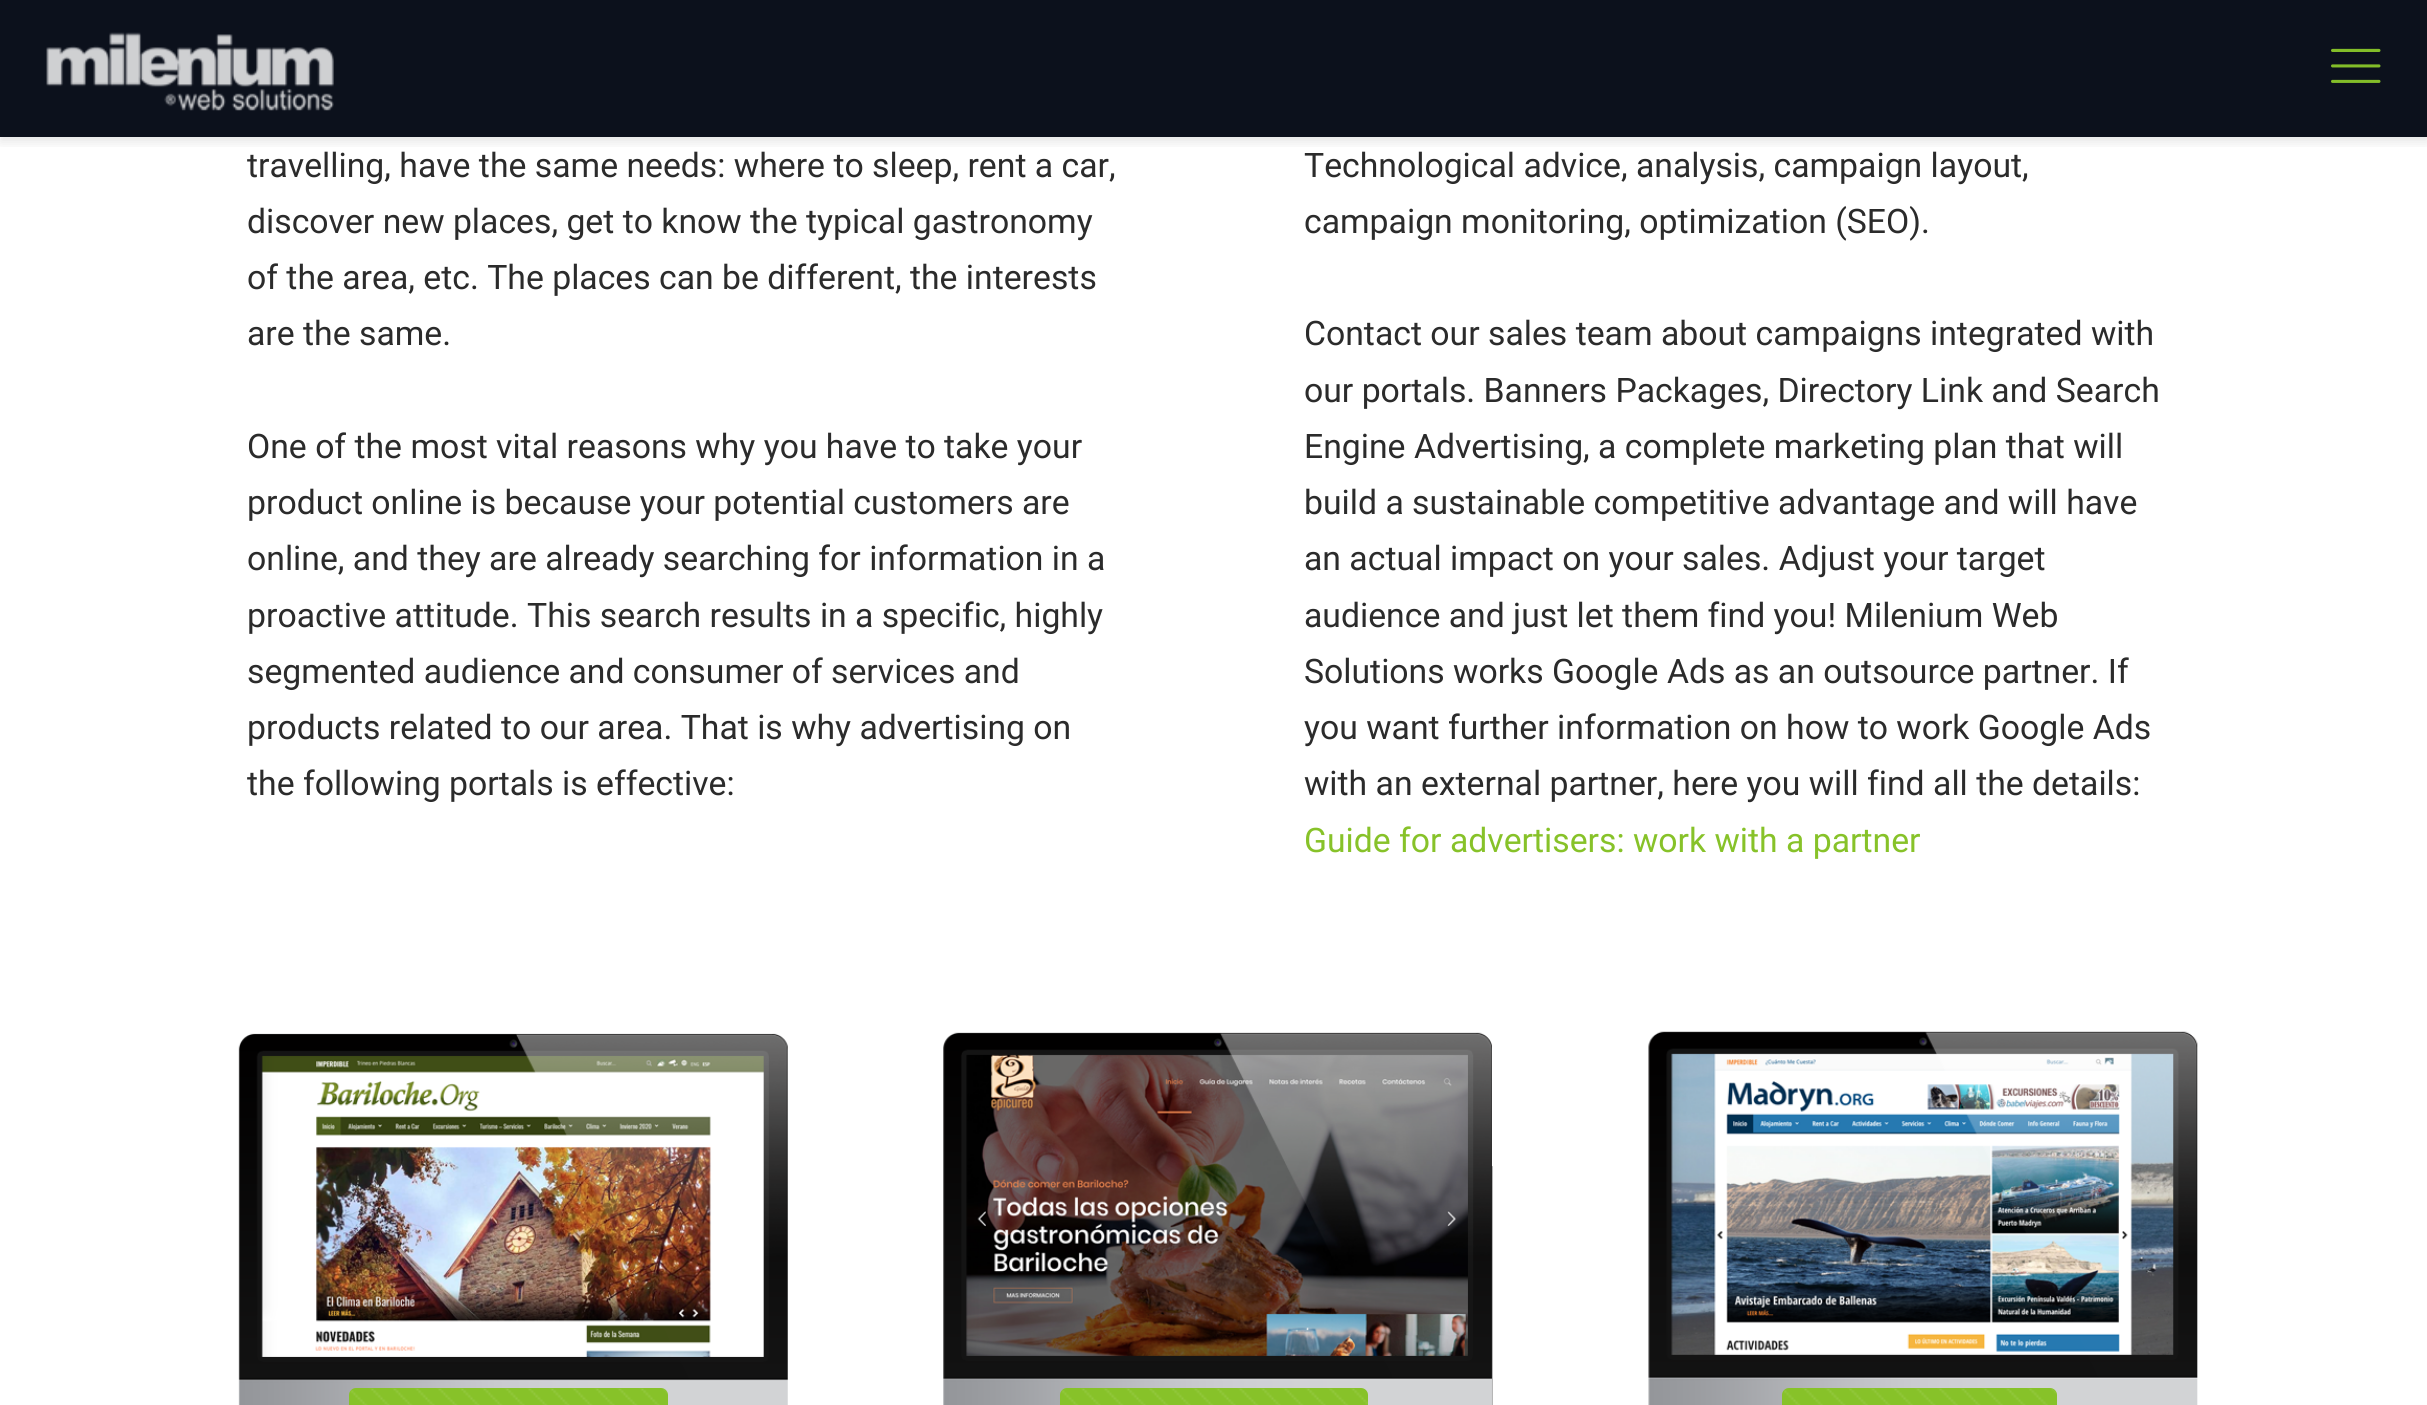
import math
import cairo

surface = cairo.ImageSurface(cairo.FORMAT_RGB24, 2427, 1405)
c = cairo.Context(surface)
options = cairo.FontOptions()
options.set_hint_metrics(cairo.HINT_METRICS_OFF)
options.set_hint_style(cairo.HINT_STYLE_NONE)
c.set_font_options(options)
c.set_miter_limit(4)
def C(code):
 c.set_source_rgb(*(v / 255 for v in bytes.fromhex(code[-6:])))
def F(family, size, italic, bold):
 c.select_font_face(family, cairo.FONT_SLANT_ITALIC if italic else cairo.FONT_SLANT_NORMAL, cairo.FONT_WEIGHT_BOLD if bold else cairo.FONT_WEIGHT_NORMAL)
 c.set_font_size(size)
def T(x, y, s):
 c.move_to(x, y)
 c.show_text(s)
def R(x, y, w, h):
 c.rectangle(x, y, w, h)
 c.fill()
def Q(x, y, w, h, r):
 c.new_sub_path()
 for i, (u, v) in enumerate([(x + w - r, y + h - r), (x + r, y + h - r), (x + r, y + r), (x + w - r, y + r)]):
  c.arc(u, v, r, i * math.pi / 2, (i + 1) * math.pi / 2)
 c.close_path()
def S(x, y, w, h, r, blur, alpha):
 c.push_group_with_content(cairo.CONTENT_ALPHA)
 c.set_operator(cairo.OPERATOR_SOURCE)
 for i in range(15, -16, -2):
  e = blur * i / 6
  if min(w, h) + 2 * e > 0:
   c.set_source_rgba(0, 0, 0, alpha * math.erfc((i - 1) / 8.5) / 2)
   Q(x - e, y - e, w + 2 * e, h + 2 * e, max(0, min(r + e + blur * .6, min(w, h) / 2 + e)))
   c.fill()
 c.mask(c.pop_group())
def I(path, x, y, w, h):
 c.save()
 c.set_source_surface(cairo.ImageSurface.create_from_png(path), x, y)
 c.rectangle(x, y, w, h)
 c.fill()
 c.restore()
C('ffffff')
c.paint()
C('0c111c')
R(0,0,2427,137)
c.save()
c.rectangle(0,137,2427,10)
c.clip()
C('000000')
S(0,5,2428,137,0,5.5,.1)
c.restore()
I('1.png',46,32,288,79)
I('2.png',2331,48,50,35)
F('Roboto',33.75,0,0)
C('2b2b2b')
T(247,177,'travelling, have the same needs: where to sleep, rent a car,')
T(247,233,'discover new places, get to know the typical gastronomy')
T(247,289,'of the area, etc. The places can be different, the interests')
T(247,345,'are the same.')
T(247,458,'One of the most vital reasons why you have to take your')
T(247,514,'product online is because your potential customers are')
T(247,570,'online, and they are already searching for information in a')
T(247,627,'proactive attitude. This search results in a specific, highly')
T(247,683,'segmented audience and consumer of services and')
T(247,739,'products related to our area. That is why advertising on')
T(247,795,'the following portals is effective:')
T(1304,177,'Technological advice, analysis, campaign layout,')
T(1304,233,'campaign monitoring, optimization (SEO).')
T(1304,345,'Contact our sales team about campaigns integrated with')
T(1304,402,'our portals. Banners Packages, Directory Link and Search')
T(1304,458,'Engine Advertising, a complete marketing plan that will')
T(1304,514,'build a sustainable competitive advantage and will have')
T(1304,570,'an actual impact on your sales. Adjust your target')
T(1304,627,'audience and just let them find you! Milenium Web')
T(1304,683,'Solutions works Google Ads as an outsource partner. If')
T(1304,739,'you want further information on how to work Google Ads')
T(1304,795,'with an external partner, here you will find all the details:')
C('87c229')
T(1304,852,'Guide for advertisers: work with a partner')
I('3.png',238,1033,550,372)
Q(349,1388,319,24,7)
c.fill()
I('4.png',350,1388,318,17)
I('5.png',943,1032,550,373)
Q(1060,1388,308,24,7)
c.fill()
I('6.png',1061,1388,307,17)
I('7.png',1648,1031,550,374)
Q(1782,1388,275,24,7)
c.fill()
I('8.png',1784,1388,272,17)
surface.write_to_png('o.png')
